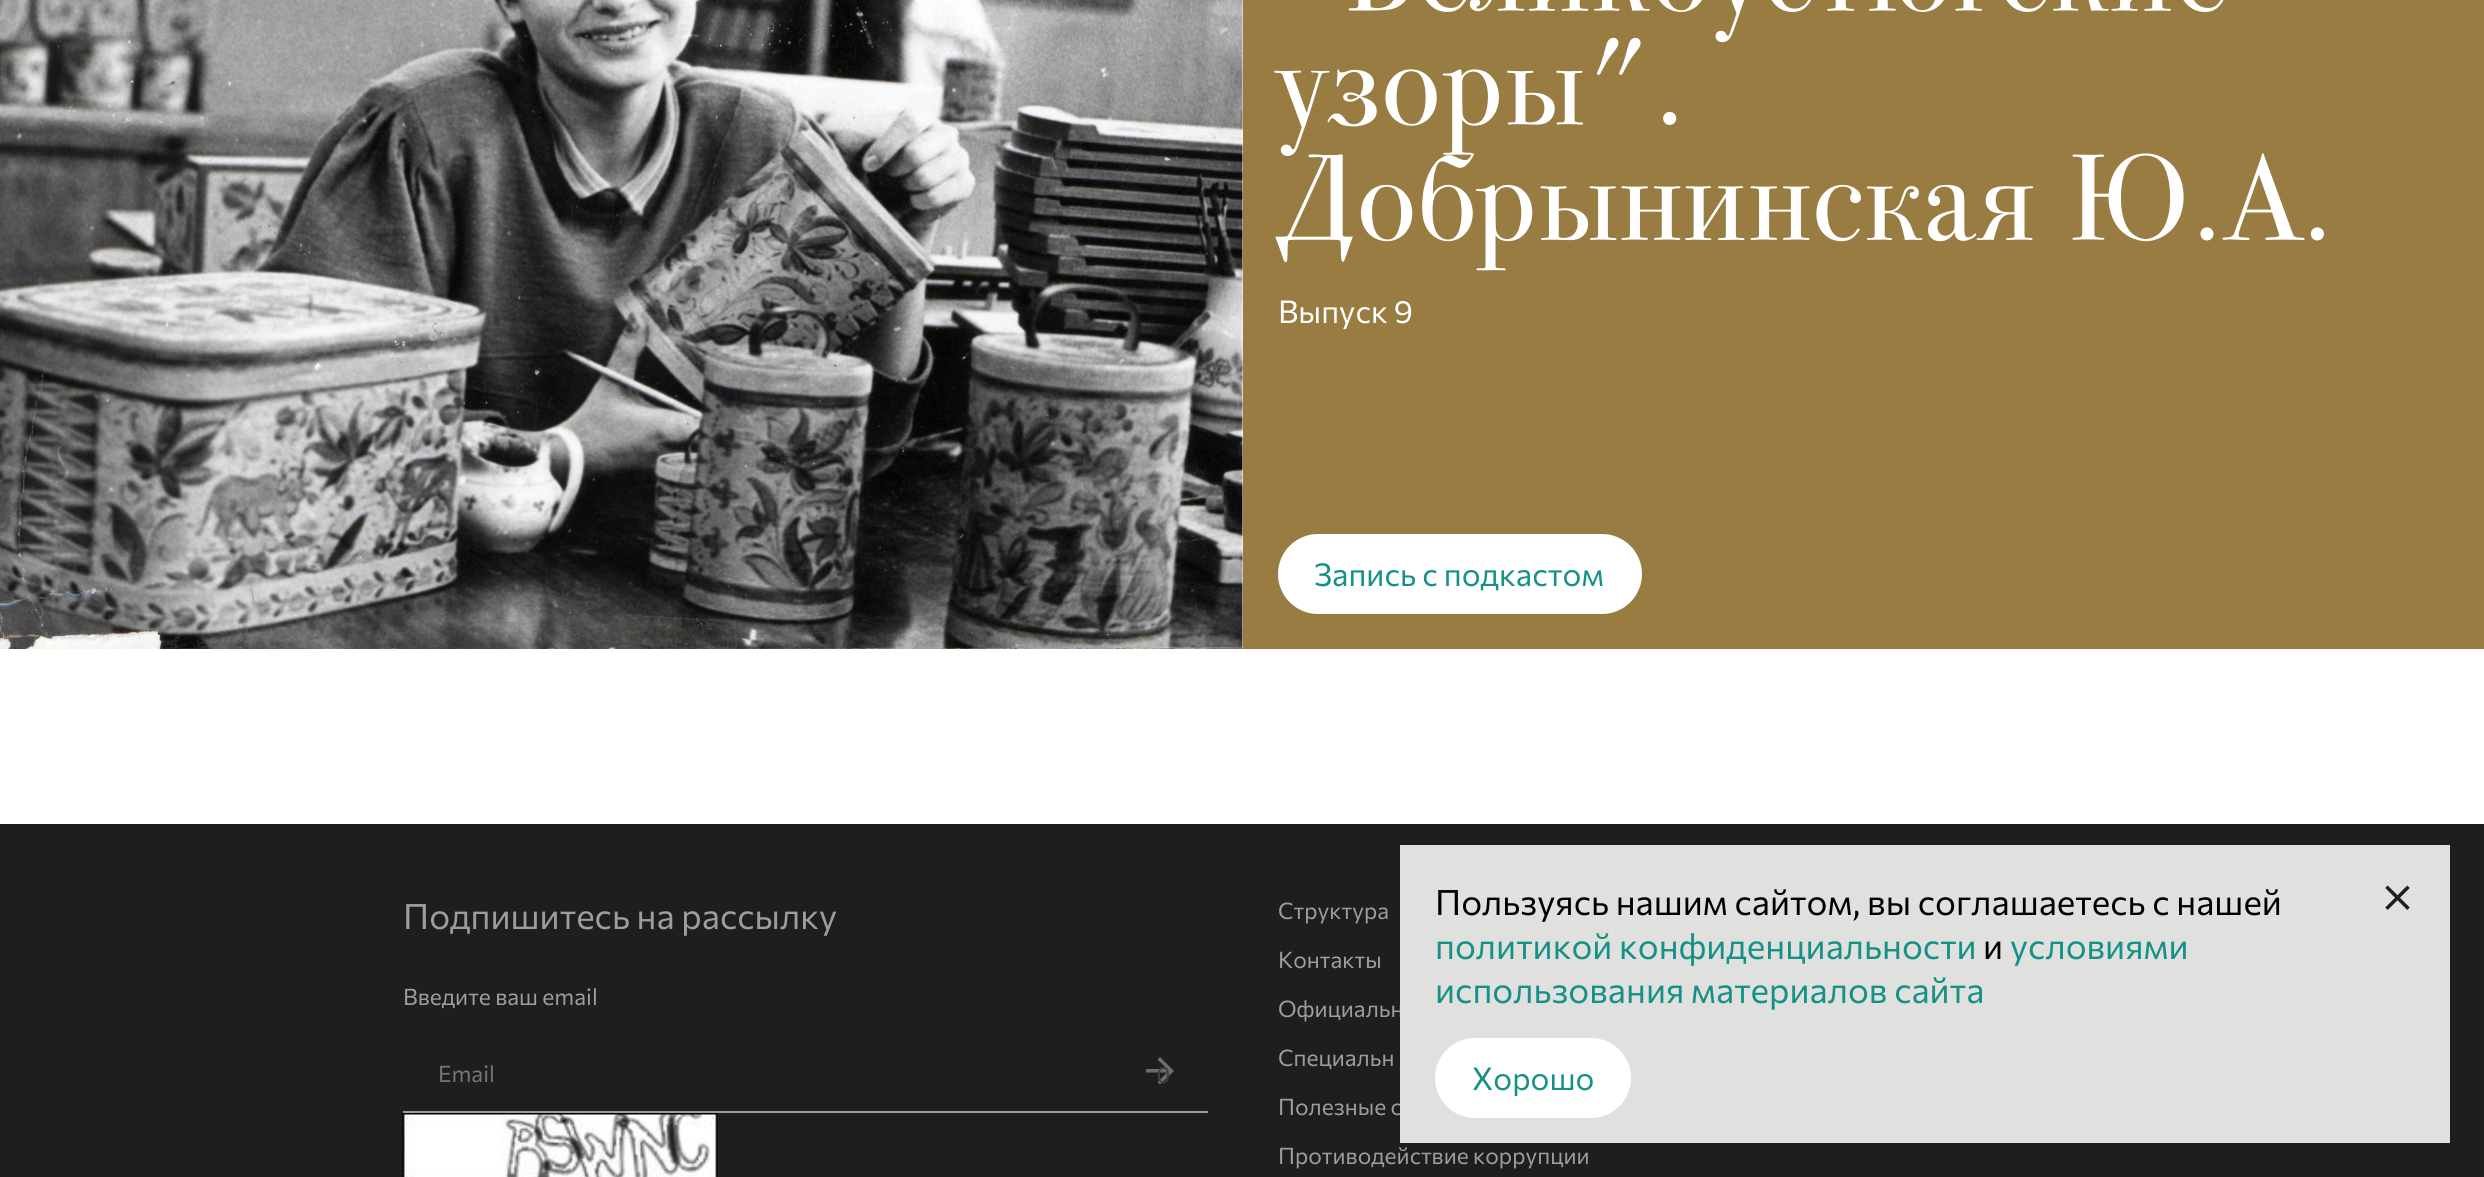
import math
import cairo

surface = cairo.ImageSurface(cairo.FORMAT_RGB24, 2484, 1177)
c = cairo.Context(surface)
options = cairo.FontOptions()
options.set_hint_metrics(cairo.HINT_METRICS_OFF)
options.set_hint_style(cairo.HINT_STYLE_NONE)
c.set_font_options(options)
c.set_miter_limit(4)
def C(code):
 c.set_source_rgb(*(v / 255 for v in bytes.fromhex(code[-6:])))
def F(family, size, italic, bold):
 c.select_font_face(family, cairo.FONT_SLANT_ITALIC if italic else cairo.FONT_SLANT_NORMAL, cairo.FONT_WEIGHT_BOLD if bold else cairo.FONT_WEIGHT_NORMAL)
 c.set_font_size(size)
def T(x, y, s):
 c.move_to(x, y)
 c.show_text(s)
def R(x, y, w, h):
 c.rectangle(x, y, w, h)
 c.fill()
def Q(x, y, w, h, r):
 c.new_sub_path()
 for i, (u, v) in enumerate([(x + w - r, y + h - r), (x + r, y + h - r), (x + r, y + r), (x + w - r, y + r)]):
  c.arc(u, v, r, i * math.pi / 2, (i + 1) * math.pi / 2)
 c.close_path()
def I(path, x, y, w, h):
 c.save()
 c.set_source_surface(cairo.ImageSurface.create_from_png(path), x, y)
 c.rectangle(x, y, w, h)
 c.fill()
 c.restore()
C('ffffff')
c.paint()
I('1.png',0,0,1243,649)
C('987c42')
R(1243,0,1241,649)
I('2.png',1348,0,876,43)
I('3.png',1274,37,403,119)
I('4.png',1275,153,1049,118)
F('Commissioner',31.5,0,0)
C('ffffff')
T(1278,323,'Выпуск 9')
Q(1279,535,362,78,39)
c.fill_preserve()
c.stroke()
C('159188')
T(1314,586,'Запись с подкастом')
C('1e1e1e')
R(0,824,2484,353)
F('Commissioner',35,0,0)
C('9d9d9d')
T(403,929,'Подпишитесь на рассылку')
F('Commissioner',22.75,0,0)
T(403,1005,'Введите ваш email')
I('5.png',402,1112,316,65)
R(403,1111,805,2)
C('757575')
T(438,1082,'Email')
C('6d6d6c')
c.new_path()
c.move_to(1146,1069)
c.line_to(1146,1072.5)
c.line_to(1167,1072.5)
c.line_to(1157.5,1082)
c.line_to(1160,1084.5)
c.line_to(1174,1071)
c.line_to(1160,1057)
c.line_to(1157.5,1059.5)
c.line_to(1167,1069)
c.close_path()
c.fill()
F('Liberation Sans',23,0,0)
C('404040')
T(1157,1083,'0')
F('Commissioner',22.75,0,0)
C('9d9d9d')
T(1278,919,'Структура')
T(1278,968,'Контакты')
T(1278,1017,'Официальн')
T(1278,1066,'Специальн')
T(1278,1115,'Полезные с')
T(1278,1164,'Противодействие коррупции')
C('e0e0df')
R(1400,845,1050,298)
F('Commissioner',35,0,0)
C('000000')
T(1435,915,'Пользуясь нашим сайтом, вы соглашаетесь с нашей')
C('159188')
T(1435,959,'политикой конфиденциальности')
C('000000')
T(1983,959,'и')
C('159188')
T(2010,959,'условиями')
T(1435,1003,'использования материалов сайта')
C('ffffff')
Q(1436,1039,194,78,39)
c.fill_preserve()
c.stroke()
F('Commissioner',31.5,0,0)
C('159188')
T(1472,1090,'Хорошо')
I('6.png',2385,885,25,25)
surface.write_to_png('o.png')
